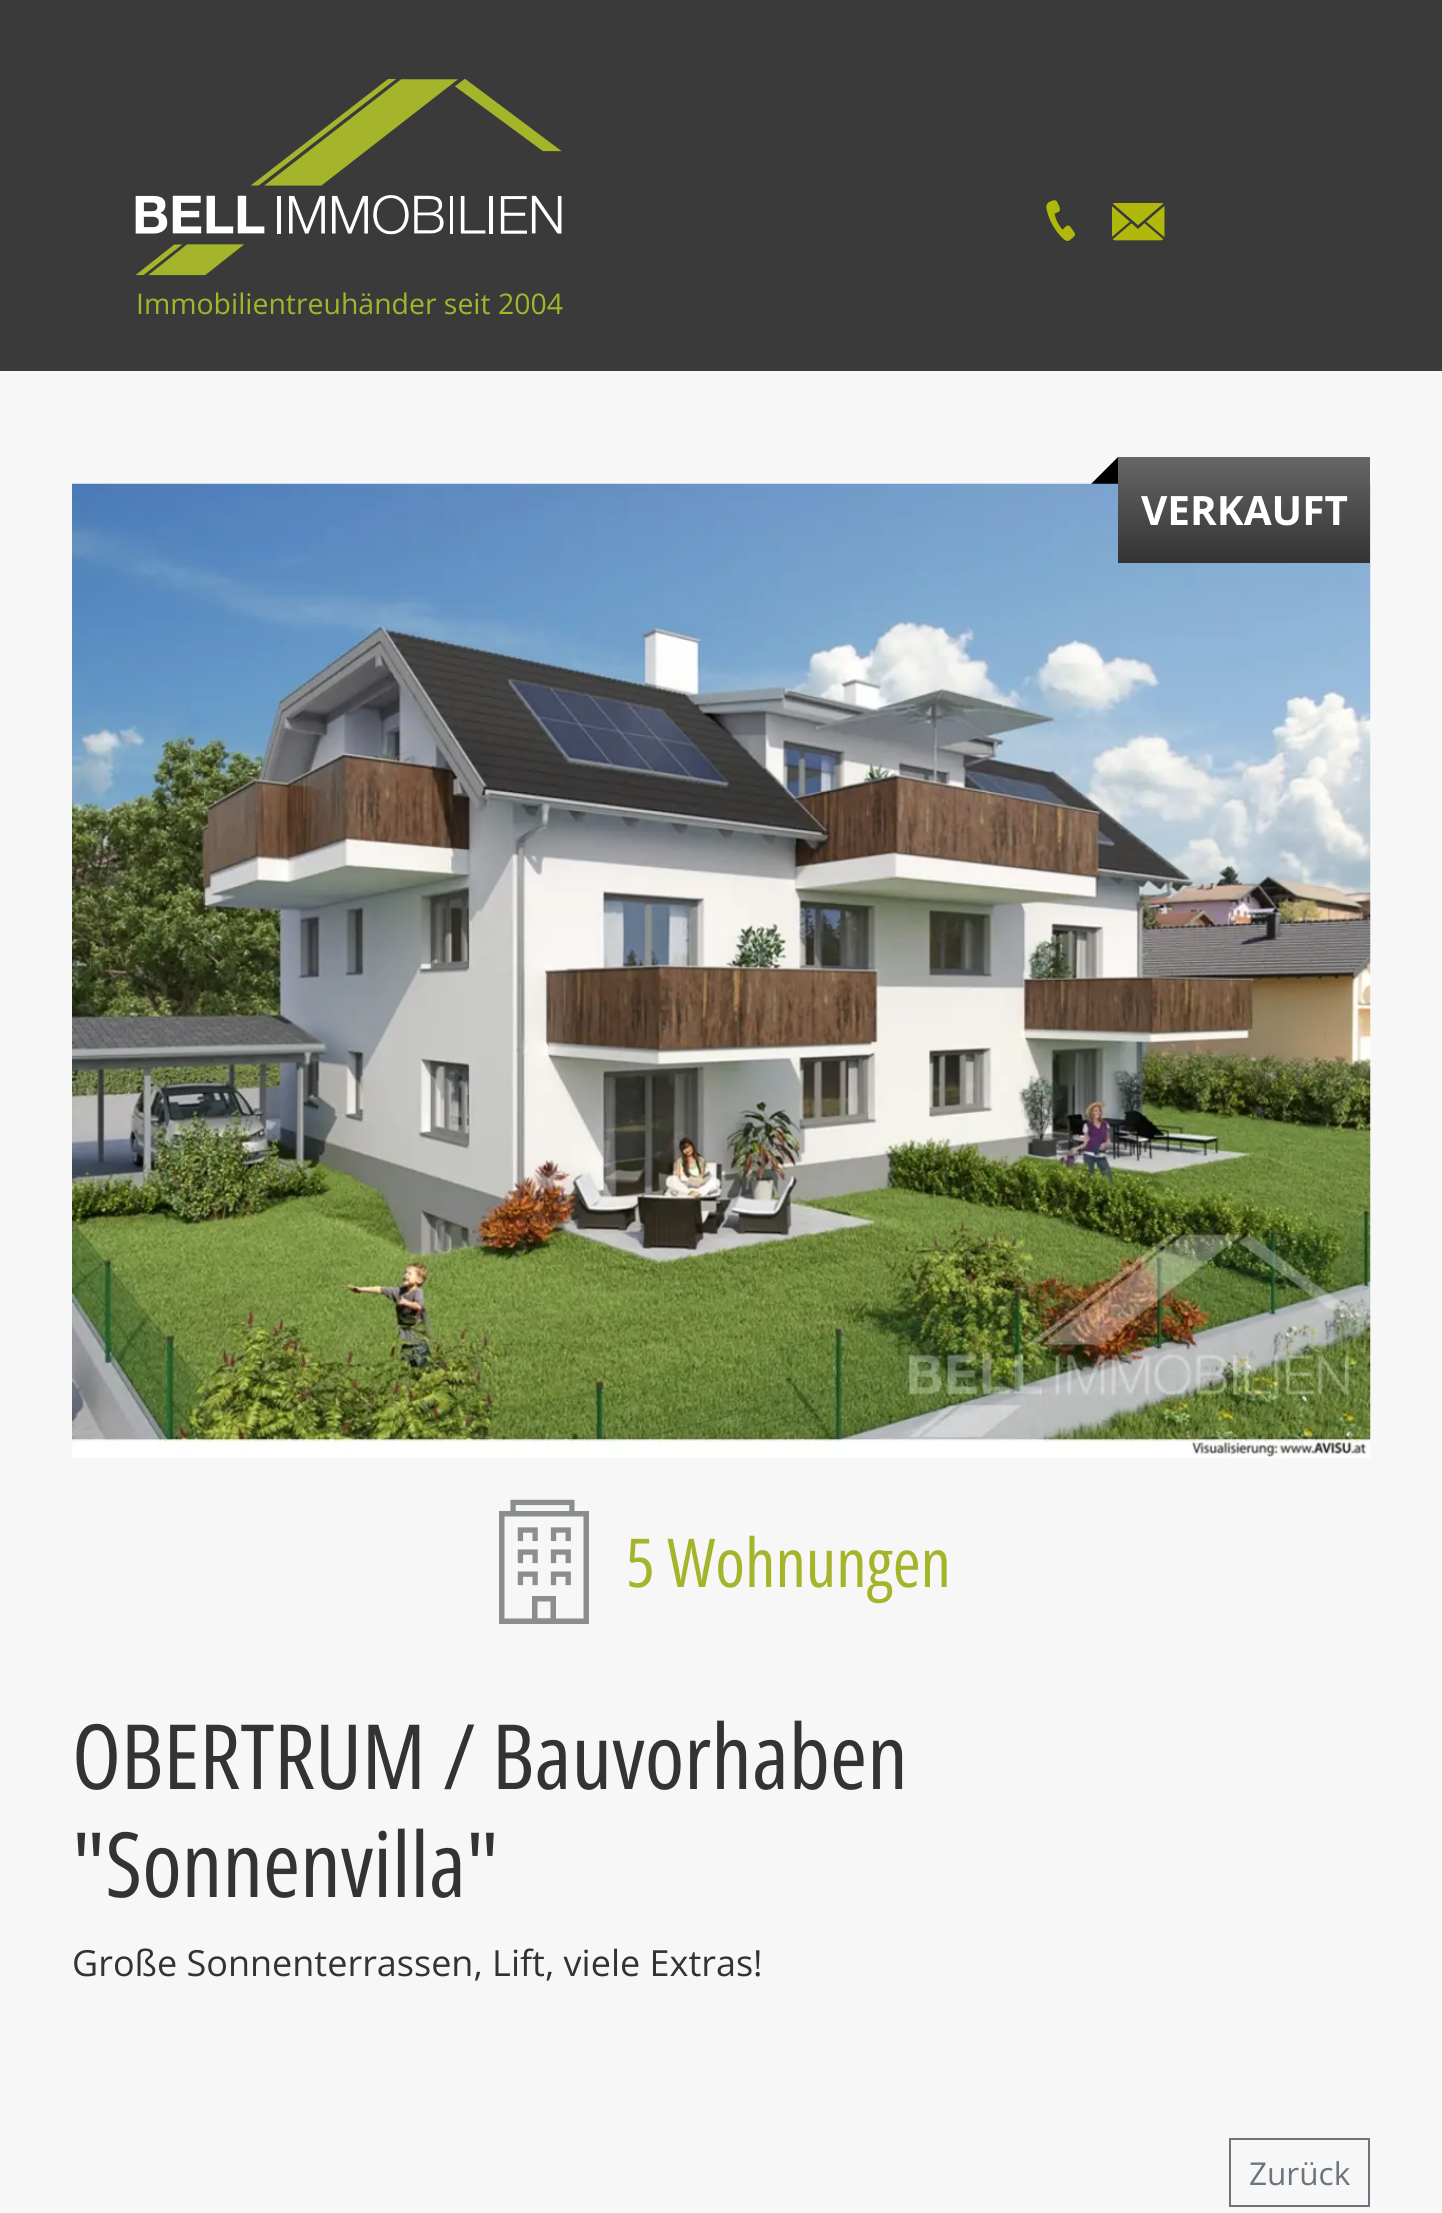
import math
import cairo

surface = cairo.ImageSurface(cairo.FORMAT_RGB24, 1442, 2213)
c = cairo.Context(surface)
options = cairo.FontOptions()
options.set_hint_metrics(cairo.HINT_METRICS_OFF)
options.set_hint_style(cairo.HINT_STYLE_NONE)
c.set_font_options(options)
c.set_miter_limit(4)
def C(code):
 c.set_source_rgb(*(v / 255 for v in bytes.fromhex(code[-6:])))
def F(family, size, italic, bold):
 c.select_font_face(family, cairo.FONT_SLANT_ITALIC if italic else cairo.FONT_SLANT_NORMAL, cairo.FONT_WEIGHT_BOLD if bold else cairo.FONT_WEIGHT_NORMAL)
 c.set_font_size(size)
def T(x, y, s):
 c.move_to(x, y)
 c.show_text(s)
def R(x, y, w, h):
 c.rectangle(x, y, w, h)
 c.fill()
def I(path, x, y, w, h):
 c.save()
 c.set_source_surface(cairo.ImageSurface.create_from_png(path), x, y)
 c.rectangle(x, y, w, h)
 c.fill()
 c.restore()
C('f7f7f7')
c.paint()
C('3a3a3a')
R(0,0,1442,371)
I('1.png',1046,200,29,41)
I('2.png',1112,203,53,38)
I('3.png',135,79,427,197)
F('Open Sans',28.4,0,0)
C('a4b52c')
T(136,314,'Immobilientreuhänder seit 2004')
C('000000')
c.new_path()
c.move_to(1145,484)
c.line_to(1091,484)
c.line_to(1118,457)
c.close_path()
c.fill()
I('4.png',72,483,1299,975)
gradient = cairo.LinearGradient(1244,457,1244,563)
gradient.add_color_stop_rgba(0,0.4,0.4,0.4,1)
gradient.add_color_stop_rgba(1,0.2,0.2,0.2,1)
c.set_source(gradient)
R(1118,457,252,106)
F('Open Sans',40.5,0,1)
C('ffffff')
T(1141,525,'VERKAUFT')
I('5.png',499,1499,90,125)
F('Open Sans Condensed',67.5,0,0)
C('a4b52c')
T(626,1587,'5 Wohnungen')
F('Open Sans Condensed',90,0,0)
C('333333')
T(72,1789,'OBERTRUM / Bauvorhaben')
T(72,1897,'"Sonnenvilla"')
F('Open Sans',36,0,0)
T(72,1976,'Große Sonnenterrassen, Lift, viele Extras!')
c.rectangle(1230,2139,139,67)
C('6c757d')
c.stroke()
F('Open Sans',31.5,0,0)
T(1249,2185,'Zurück')
surface.write_to_png('o.png')
